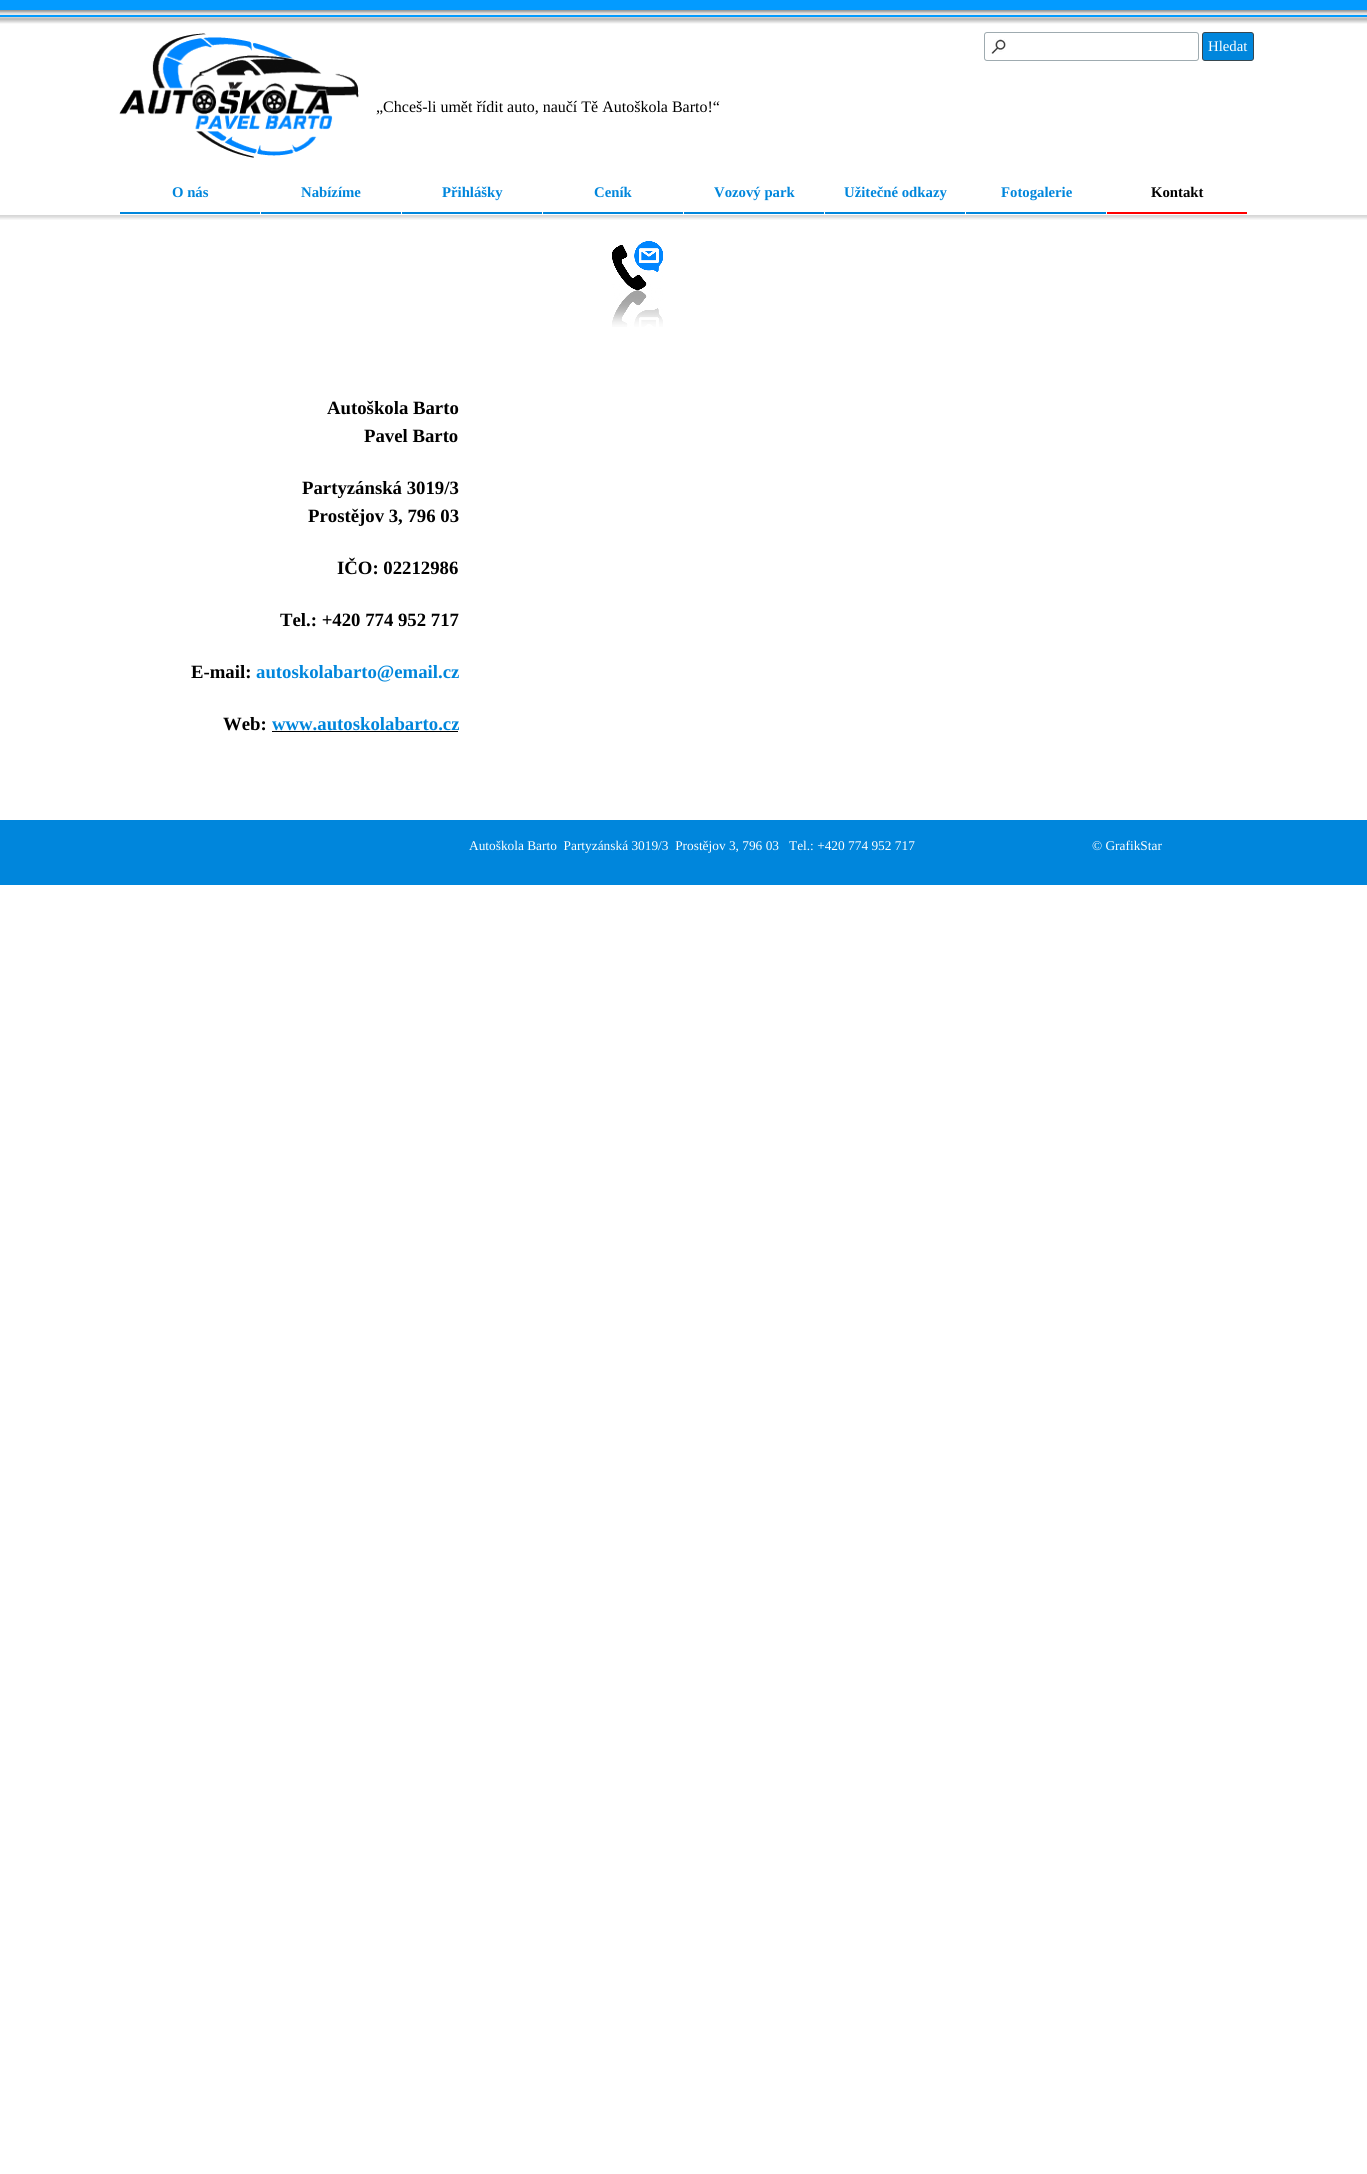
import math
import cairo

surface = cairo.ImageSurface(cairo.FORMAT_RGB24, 1367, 2174)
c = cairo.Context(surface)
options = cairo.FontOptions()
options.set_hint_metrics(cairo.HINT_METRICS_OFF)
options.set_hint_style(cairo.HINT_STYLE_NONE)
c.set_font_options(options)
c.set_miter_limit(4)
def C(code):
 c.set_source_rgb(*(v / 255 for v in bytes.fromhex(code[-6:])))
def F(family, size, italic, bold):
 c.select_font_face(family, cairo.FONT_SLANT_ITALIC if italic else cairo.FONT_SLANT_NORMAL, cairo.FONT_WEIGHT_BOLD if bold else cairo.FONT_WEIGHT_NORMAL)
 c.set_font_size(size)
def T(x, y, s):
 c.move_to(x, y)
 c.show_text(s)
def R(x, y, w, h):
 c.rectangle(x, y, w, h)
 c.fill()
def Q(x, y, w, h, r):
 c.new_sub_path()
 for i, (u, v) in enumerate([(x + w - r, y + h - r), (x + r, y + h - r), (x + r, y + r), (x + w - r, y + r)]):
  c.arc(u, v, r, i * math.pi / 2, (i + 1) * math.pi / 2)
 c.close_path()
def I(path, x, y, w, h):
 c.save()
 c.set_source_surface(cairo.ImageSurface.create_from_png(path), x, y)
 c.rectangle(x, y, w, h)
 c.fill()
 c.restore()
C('ffffff')
c.paint()
I('1.png',0,0,1367,220)
I('2.png',119,33,240,125)
I('3.png',991,39,15,15)
Q(984.5,32.5,214,28,2.5)
C('9fabb0')
c.set_line_width(1)
c.stroke()
C('0086dc')
Q(1202.5,32.5,51,28,2.5)
c.fill_preserve()
C('37474f')
c.stroke()
F('Liberation Serif',14.75,0,0)
C('ffffff')
T(1208,51,'Hledat')
F('Liberation Serif',16,0,0)
C('000000')
T(376,112,'„Chceš-li umět řídit auto, naučí Tě Autoškola Barto!“')
C('0086dc')
R(120,212,140,2)
F('Liberation Serif',14.75,0,1)
T(172,197,'O nás')
R(261,212,140,2)
T(301,197,'Nabízíme')
R(402,212,140,2)
T(442,197,'Přihlášky')
R(543,212,140,2)
T(594,197,'Ceník')
R(684,212,140,2)
T(714,197,'Vozový park')
R(825,212,140,2)
T(844,197,'Užitečné odkazy')
R(966,212,140,2)
T(1001,197,'Fotogalerie')
C('ff0000')
R(1107,212,140,2)
C('000000')
T(1151,197,'Kontakt')
I('4.png',612,241,51,86)
F('Liberation Serif',18.75,0,1)
T(327,414,'Autoškola Barto')
T(364,442,'Pavel Barto')
T(302,494,'Partyzánská 3019/3')
T(308,522,'Prostějov 3, 796 03')
T(337,574,'IČO: 02212986')
T(280,626,'Tel.: +420 774 952 717')
T(191,678,'E-mail:')
C('0086dc')
T(256,678,'autoskolabarto@email.cz')
C('000000')
T(223,730,'Web:')
C('0086dc')
T(272,730,'www.autoskolabarto.cz')
C('000000')
R(272,731,186,1)
C('0086dc')
R(0,820,1367,65)
F('Liberation Serif',13.35,0,0)
C('ffffff')
T(469,850,'Autoškola Barto  Partyzánská 3019/3  Prostějov 3, 796 03   Tel.: +420 774 952 717')
T(1092,850,'© GrafikStar')
surface.write_to_png('o.png')
